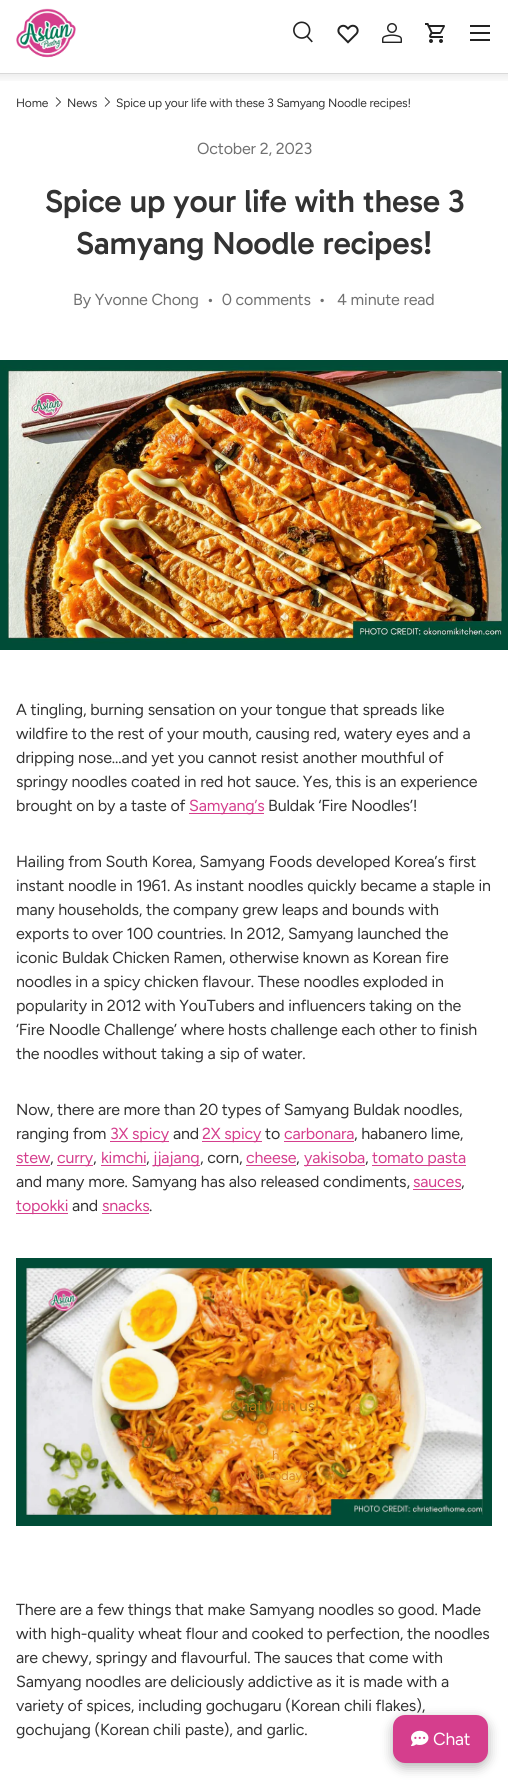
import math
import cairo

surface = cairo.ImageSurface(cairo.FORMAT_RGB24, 508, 1783)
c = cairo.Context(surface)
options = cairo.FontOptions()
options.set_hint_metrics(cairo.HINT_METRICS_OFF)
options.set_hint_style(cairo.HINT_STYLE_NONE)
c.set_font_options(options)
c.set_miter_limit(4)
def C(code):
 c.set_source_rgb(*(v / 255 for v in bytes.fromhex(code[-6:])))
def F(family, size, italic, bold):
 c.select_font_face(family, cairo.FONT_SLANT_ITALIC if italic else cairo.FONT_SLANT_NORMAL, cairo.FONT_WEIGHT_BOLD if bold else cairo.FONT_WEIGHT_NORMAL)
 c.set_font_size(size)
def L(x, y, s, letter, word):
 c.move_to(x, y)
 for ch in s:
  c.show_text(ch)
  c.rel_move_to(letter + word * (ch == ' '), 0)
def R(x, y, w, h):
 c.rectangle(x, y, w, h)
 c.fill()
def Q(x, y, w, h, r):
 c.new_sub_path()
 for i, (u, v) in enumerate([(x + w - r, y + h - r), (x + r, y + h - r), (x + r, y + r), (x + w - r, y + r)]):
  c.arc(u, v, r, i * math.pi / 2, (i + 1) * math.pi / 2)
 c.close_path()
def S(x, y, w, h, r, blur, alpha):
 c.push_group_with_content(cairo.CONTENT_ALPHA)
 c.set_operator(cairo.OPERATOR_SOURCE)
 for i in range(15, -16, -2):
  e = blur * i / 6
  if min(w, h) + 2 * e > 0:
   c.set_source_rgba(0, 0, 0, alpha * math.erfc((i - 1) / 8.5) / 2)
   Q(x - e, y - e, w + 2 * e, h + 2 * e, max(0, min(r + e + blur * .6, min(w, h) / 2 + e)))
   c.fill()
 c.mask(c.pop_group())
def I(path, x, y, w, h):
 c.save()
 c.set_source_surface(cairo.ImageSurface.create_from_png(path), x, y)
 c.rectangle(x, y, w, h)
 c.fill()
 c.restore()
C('ffffff')
c.paint()
c.save()
c.rectangle(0,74,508,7)
c.clip()
C('000000')
S(-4,-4,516,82,0,5,.08)
c.restore()
I('1.png',16,8,60,50)
I('2.png',293,21,20,22)
I('3.png',337,24,22,20)
I('4.png',382,23,20,20)
I('5.png',425,23,20,20)
C('222222')
R(470,25,20,2)
R(470,39,20,2)
R(470,32,20,2)
C('d9d9d9')
R(0,73,508,1)
F('Figtree',12,0,0)
C('333333')
L(16,107,'Home',-.15,0)
c.new_path()
c.move_to(56,97.5)
c.line_to(60.5,102)
c.line_to(56,106.5)
c.move_to(105,97.5)
c.line_to(109.5,102)
c.line_to(105,106.5)
c.set_line_width(.9)
c.stroke()
L(67,107,'News',-.15,0)
L(116,107,'Spice up your life with these 3 Samyang Noodle recipes!',-.15,0)
F('Figtree',16,0,0)
C('707070')
L(197,154,'October 2, 2023',-.15,0)
F('Gabarito Medium',32.2,0,0)
C('333333')
L(45,212,'Spice up your life with these 3',-.3,0)
L(76,254,'Samyang Noodle recipes!',-.3,0)
F('Figtree',16,0,0)
C('707070')
L(73,305,'By Yvonne Chong  •  0 comments  •',-.15,0)
L(337,305,'4 minute read',-.15,0)
I('6.png',0,360,508,290)
C('333333')
L(16,715,'A tingling, burning sensation on your tongue that spreads like',-.15,0)
L(16,739,'wildfire to the rest of your mouth, causing red, watery eyes and a',-.15,0)
L(16,763,'dripping nose…and yet you cannot resist another mouthful of',-.15,0)
L(16,787,'springy noodles coated in red hot sauce. Yes, this is an experience',-.15,0)
L(16,811,'brought on by a taste of',-.15,0)
C('d53e8d')
R(189,813,75,1)
L(189,811,'Samyang’s',-.15,0)
C('333333')
L(268,811,'Buldak ‘Fire Noodles’!',-.15,0)
L(16,867,'Hailing from South Korea, Samyang Foods developed Korea’s first',-.15,0)
L(16,891,'instant noodle in 1961. As instant noodles quickly became a staple in',-.15,0)
L(16,915,'many households, the company grew leaps and bounds with',-.15,0)
L(16,939,'exports to over 100 countries. In 2012, Samyang launched the',-.15,0)
L(16,963,'iconic Buldak Chicken Ramen, otherwise known as Korean fire',-.15,0)
L(16,987,'noodles in a spicy chicken flavour. These noodles exploded in',-.15,0)
L(16,1011,'popularity in 2012 with YouTubers and influencers taking on the',-.15,0)
L(16,1035,'‘Fire Noodle Challenge’ where hosts challenge each other to finish',-.15,0)
L(16,1059,'the noodles without taking a sip of water.',-.15,0)
L(16,1115,'Now, there are more than 20 types of Samyang Buldak noodles,',-.15,0)
L(16,1139,'ranging from',-.15,0)
C('d53e8d')
R(110,1141,59,1)
L(110,1139,'3X spicy',-.15,0)
C('333333')
L(173,1139,'and',-.15,0)
C('d53e8d')
R(202,1141,60,1)
L(202,1139,'2X spicy',-.15,0)
C('333333')
L(265,1139,'to',-.15,0)
C('d53e8d')
L(284,1139,'carbonara',-.15,0)
R(284,1141,70,1)
C('333333')
L(354,1139,', habanero lime,',-.15,0)
C('d53e8d')
L(16,1163,'stew',-.15,0)
R(16,1165,34,1)
C('333333')
L(50,1163,',',-.15,0)
C('d53e8d')
R(57,1165,36,1)
L(57,1163,'curry',-.15,0)
C('333333')
L(93,1163,',',-.15,0)
C('d53e8d')
L(101,1163,'kimchi',-.15,0)
R(101,1165,45,1)
C('333333')
L(146,1163,',',-.15,0)
C('d53e8d')
R(153,1165,47,1)
L(153,1163,'jjajang',-.15,0)
C('333333')
L(200,1163,', corn,',-.15,0)
C('d53e8d')
L(246,1163,'cheese',-.15,0)
R(246,1165,50,1)
C('333333')
L(296,1163,',',-.15,0)
C('d53e8d')
R(304,1165,61,1)
L(304,1163,'yakisoba',-.15,0)
C('333333')
L(365,1163,',',-.15,0)
C('d53e8d')
R(372,1165,94,1)
L(372,1163,'tomato pasta',-.15,0)
C('333333')
L(16,1187,'and many more. Samyang has also released condiments,',-.15,0)
C('d53e8d')
L(413,1187,'sauces',-.15,0)
R(413,1189,48,1)
C('333333')
L(461,1187,',',-.15,0)
C('d53e8d')
R(16,1213,52,1)
L(16,1211,'topokki',-.15,0)
C('333333')
L(72,1211,'and',-.15,0)
C('d53e8d')
L(102,1211,'snacks',-.15,0)
R(102,1213,47,1)
C('333333')
L(149,1211,'.',-.15,0)
I('7.png',16,1258,476,268)
L(16,1615,'There are a few things that make Samyang noodles so good. Made',-.15,0)
L(16,1639,'with high-quality wheat flour and cooked to perfection, the noodles',-.15,0)
L(16,1663,'are chewy, springy and flavourful. The sauces that come with',-.15,0)
L(16,1687,'Samyang noodles are deliciously addictive as it is made with a',-.15,0)
L(16,1711,'variety of spices, including gochugaru (Korean chili flakes),',-.15,0)
L(16,1735,'gochujang (Korean chili paste), and garlic.',-.15,0)
F('Figtree',15.25,0,0)
C('b87918')
L(230,1411,'Chat with us!',-.1,0)
F('Figtree',13.25,0,0)
C('e38f22')
L(272,1460,'h',-.1,0)
C('d98b2c')
L(240,1480,'with today?',-.1,0)
C('000000')
S(393,1719,95,48,12,6,.3)
C('d53e8d')
Q(393,1715,95,48,12)
c.fill()
I('8.png',411,1730,18,17)
F('Figtree',17.5,0,0)
C('ffffff')
L(433,1745,'Chat',-.15,0)
surface.write_to_png('o.png')
